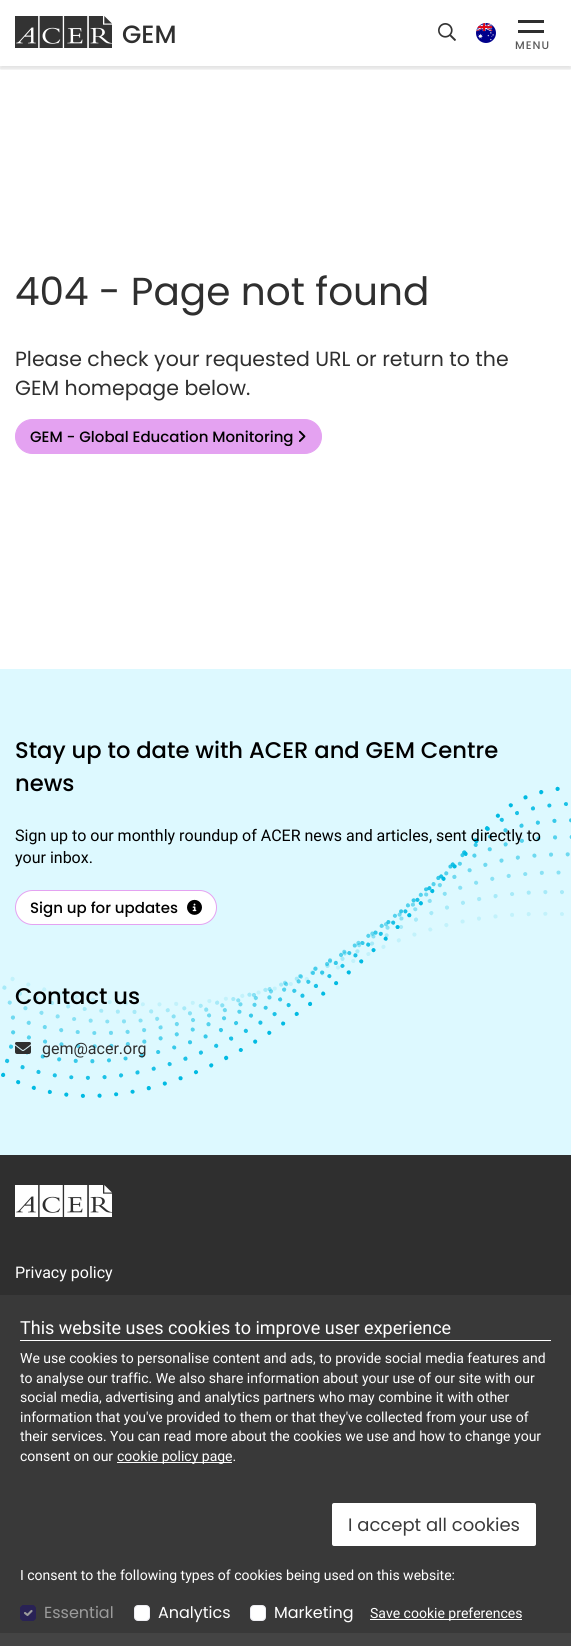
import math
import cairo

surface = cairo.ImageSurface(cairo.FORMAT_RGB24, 571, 1646)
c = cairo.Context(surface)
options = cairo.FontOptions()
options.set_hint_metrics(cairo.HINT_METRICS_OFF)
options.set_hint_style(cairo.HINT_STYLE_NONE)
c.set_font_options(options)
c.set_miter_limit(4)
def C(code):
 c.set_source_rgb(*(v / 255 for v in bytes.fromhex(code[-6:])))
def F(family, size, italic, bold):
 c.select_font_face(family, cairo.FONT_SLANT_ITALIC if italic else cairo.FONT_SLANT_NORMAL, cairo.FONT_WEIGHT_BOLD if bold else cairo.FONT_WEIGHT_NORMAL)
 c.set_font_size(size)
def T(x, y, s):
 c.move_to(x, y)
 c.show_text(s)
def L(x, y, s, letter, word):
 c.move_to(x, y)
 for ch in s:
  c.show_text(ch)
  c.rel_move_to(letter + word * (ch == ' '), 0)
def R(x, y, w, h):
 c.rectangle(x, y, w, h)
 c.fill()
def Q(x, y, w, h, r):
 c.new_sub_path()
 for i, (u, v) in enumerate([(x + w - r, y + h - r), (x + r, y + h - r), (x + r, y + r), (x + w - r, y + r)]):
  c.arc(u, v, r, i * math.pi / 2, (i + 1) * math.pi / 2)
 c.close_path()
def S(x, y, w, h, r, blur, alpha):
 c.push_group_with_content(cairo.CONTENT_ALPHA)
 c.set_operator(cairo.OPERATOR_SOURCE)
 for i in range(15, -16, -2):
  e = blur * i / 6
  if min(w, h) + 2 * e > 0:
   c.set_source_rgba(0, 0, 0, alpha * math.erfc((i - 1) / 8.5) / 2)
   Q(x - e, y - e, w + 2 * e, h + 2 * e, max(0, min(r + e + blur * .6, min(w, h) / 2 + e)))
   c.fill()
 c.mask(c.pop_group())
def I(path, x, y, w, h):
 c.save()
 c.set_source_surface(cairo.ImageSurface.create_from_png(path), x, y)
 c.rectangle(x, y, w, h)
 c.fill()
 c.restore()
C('ffffff')
c.paint()
C('444444')
R(0,1633,571,13)
c.save()
c.rectangle(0,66,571,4)
c.clip()
C('000000')
S(0,3,571,66,0,1.5,.06)
S(0,37,571,32,0,1.5,.06)
c.restore()
I('1.png',476,23,20,20)
I('2.png',15,16,97,32)
F('Poppins Medium',25,0,0)
C('2f2f2f')
T(122,43,'GEM')
I('3.png',438,23,18,18)
R(518,20,26,3)
R(518,30,26,3)
F('Poppins Medium',11,0,0)
C('595959')
L(515,49,'MENU',1,0)
F('Poppins',39,0,0)
C('2f2f2f')
T(15,305,'404 - Page not found')
F('Poppins',20.5,0,0)
T(15,366,'Please check your requested URL or return to the')
T(15,395,'GEM homepage below.')
C('e4a2f1')
Q(15.5,419.5,306,34,17)
c.fill_preserve()
c.set_line_width(1)
c.stroke()
F('Poppins Medium',15,0,0)
C('000000')
T(30,442,'GEM - Global Education Monitoring')
I('4.png',298,430,8,12)
C('ddf9ff')
R(0,669,571,486)
I('5.png',1,786,570,312)
F('Poppins Medium',22.65,0,0)
C('000000')
T(15,758,'Stay up to date with ACER and GEM Centre')
T(15,791,'news')
F('Roboto',16,0,0)
T(15,841,'Sign up to our monthly roundup of ACER news and articles, sent directly to')
T(15,863,'your inbox.')
C('ffffff')
Q(15.5,890.5,201,34,17)
c.fill_preserve()
C('e4a2f1')
c.stroke()
F('Poppins Medium',15,0,0)
C('000000')
T(30,913,'Sign up for updates')
I('6.png',187,899,15,16)
F('Poppins Medium',22.65,0,0)
T(15,1004,'Contact us')
I('7.png',15,1042,16,12)
F('Roboto',16,0,0)
C('2f2f2f')
T(42,1054,'gem@acer.org')
R(0,1155,571,140)
C('393939')
R(0,1295,571,338)
I('8.png',15,1185,97,32)
C('ffffff')
T(15,1278,'Privacy policy')
R(20,1340,531,1)
F('Roboto',18,0,0)
T(20,1334,'This website uses cookies to improve user experience')
F('Roboto',14,0,0)
T(20,1363,'We use cookies to personalise content and ads, to provide social media features and')
T(20,1383,'to analyse our traffic. We also share information about your use of our site with our')
T(20,1402,'social media, advertising and analytics partners who may combine it with other')
T(20,1422,'information that you\'ve provided to them or that they\'ve collected from your use of')
T(20,1441,'their services. You can read more about the cookies we use and how to change your')
T(20,1461,'consent on our')
R(117,1462,115,1)
T(117,1461,'cookie policy page.')
Q(332,1503,204,43,2)
c.fill()
F('Poppins',18,0,0)
C('3a3a3a')
T(348,1531,'I accept all cookies')
F('Roboto',14,0,0)
C('ffffff')
T(20,1580,'I consent to the following types of cookies being used on this website:')
C('292255')
Q(20,1605,16,16,4)
c.fill()
c.new_path()
c.move_to(25,1613)
c.line_to(27.5,1615)
c.line_to(31.5,1611)
C('9c9c9c')
c.set_line_width(2.1)
c.set_line_cap(cairo.LINE_CAP_ROUND)
c.set_line_join(cairo.LINE_JOIN_ROUND)
c.stroke()
Q(20.5,1605.5,15,15,3.5)
C('292255')
c.set_line_width(1)
c.set_line_cap(cairo.LINE_CAP_BUTT)
c.set_line_join(cairo.LINE_JOIN_MITER)
c.stroke()
F('Poppins',16,0,0)
C('9c9c9c')
T(44,1618,'Essential')
C('ffffff')
Q(134.5,1605.5,15,15,3.5)
c.fill_preserve()
C('ededf2')
c.stroke()
C('ffffff')
T(158,1618,'Analytics')
Q(250.5,1605.5,15,15,3.5)
c.fill_preserve()
C('ededf2')
c.stroke()
C('ffffff')
T(274,1618,'Marketing')
R(370,1619,152,1)
F('Roboto',14,0,0)
T(370,1618,'Save cookie preferences')
surface.write_to_png('o.png')
